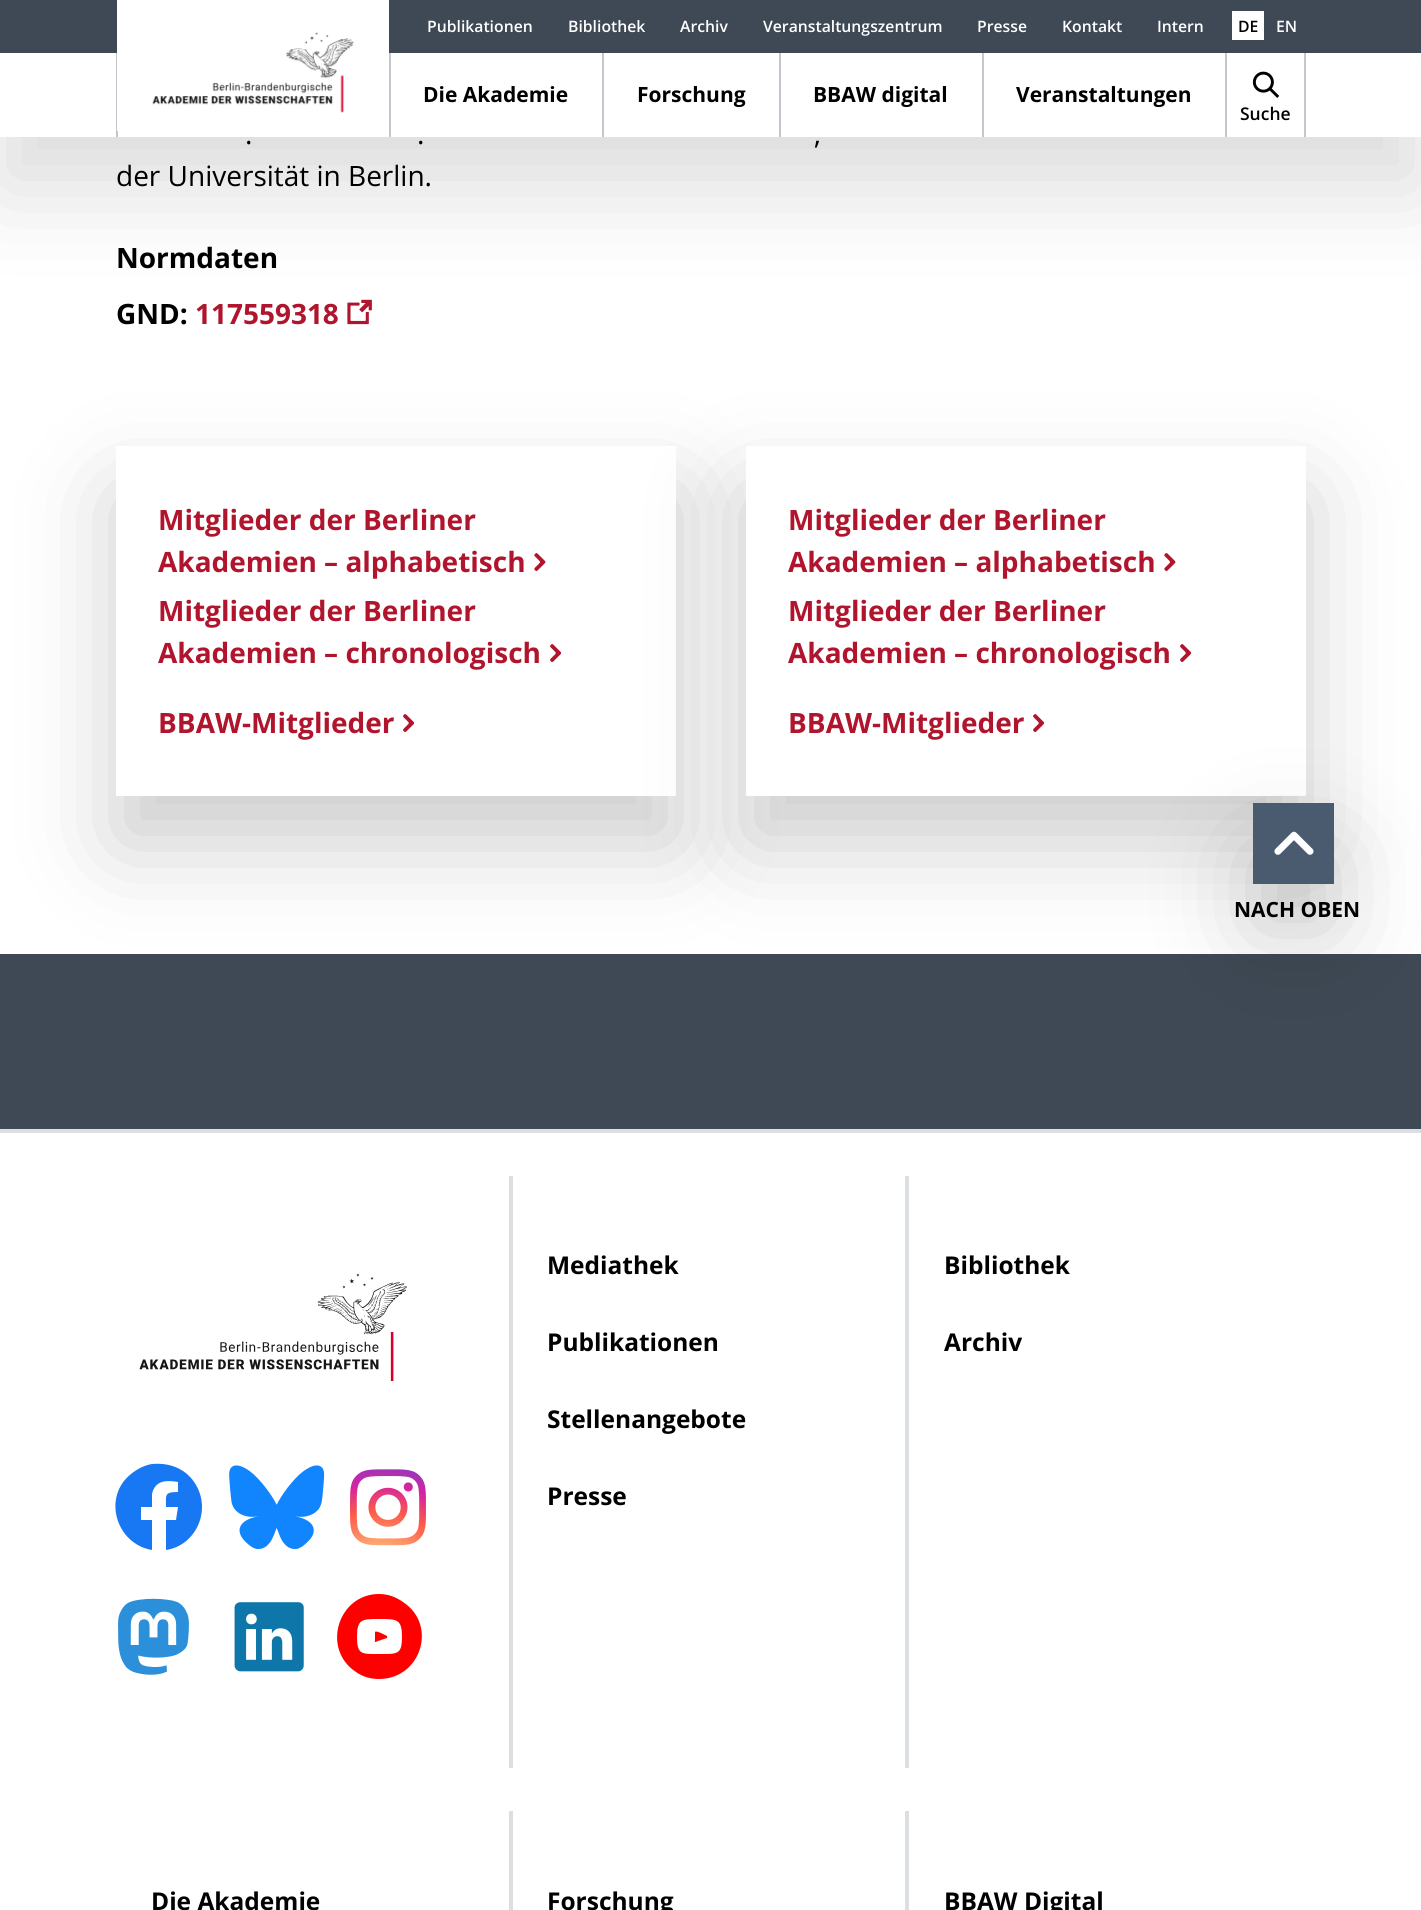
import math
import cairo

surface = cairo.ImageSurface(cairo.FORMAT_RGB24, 1421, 1910)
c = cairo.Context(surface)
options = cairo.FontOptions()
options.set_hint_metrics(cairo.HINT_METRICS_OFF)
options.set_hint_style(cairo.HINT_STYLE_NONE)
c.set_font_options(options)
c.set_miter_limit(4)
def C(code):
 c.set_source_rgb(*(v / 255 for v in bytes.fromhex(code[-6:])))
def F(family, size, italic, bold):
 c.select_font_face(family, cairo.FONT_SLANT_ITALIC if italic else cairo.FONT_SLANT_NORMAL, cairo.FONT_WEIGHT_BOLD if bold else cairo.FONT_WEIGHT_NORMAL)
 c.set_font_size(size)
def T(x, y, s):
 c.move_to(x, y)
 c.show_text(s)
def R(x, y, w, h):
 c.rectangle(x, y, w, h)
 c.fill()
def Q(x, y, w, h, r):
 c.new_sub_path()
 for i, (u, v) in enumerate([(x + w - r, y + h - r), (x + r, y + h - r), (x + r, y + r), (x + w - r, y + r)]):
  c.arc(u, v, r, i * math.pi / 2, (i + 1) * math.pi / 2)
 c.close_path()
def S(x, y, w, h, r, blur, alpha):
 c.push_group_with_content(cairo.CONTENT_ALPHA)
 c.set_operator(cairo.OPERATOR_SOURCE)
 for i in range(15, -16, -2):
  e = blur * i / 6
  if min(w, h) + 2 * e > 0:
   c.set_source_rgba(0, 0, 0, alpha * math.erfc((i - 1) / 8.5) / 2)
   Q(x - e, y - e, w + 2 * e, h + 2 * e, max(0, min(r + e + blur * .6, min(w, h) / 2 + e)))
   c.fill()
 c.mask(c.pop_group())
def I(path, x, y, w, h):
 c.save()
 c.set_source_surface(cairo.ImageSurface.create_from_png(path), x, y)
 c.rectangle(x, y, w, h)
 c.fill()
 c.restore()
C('ffffff')
c.paint()
I('3.png',347,299,25,26)
C('000000')
S(-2,49,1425,140,0,48,.14)
C('ffffff')
R(0,53,1421,84)
C('3e4955')
R(0,0,1421,53)
F('Open Sans SemiBold',15.75,0,0)
C('ffffff')
T(427,32,'Publikationen')
T(568,32,'Bibliothek')
T(680,32,'Archiv')
T(763,32,'Veranstaltungszentrum')
T(977,32,'Presse')
T(1062,32,'Kontakt')
T(1157,32,'Intern')
R(1232,11,32,29)
C('000000')
T(1238,32,'DE')
C('ffffff')
T(1276,32,'EN')
C('c1c7cd')
R(116,53,2,84)
C('ffffff')
R(117,0,272,131)
I('1.png',152,32,202,81)
C('c1c7cd')
R(602,53,2,84)
R(389,53,2,84)
F('Open Sans',21,0,1)
C('000000')
T(423,102,'Die Akademie')
C('c1c7cd')
R(779,53,2,84)
C('000000')
T(637,102,'Forschung')
C('c1c7cd')
R(982,53,2,84)
C('000000')
T(813,102,'BBAW digital')
C('c1c7cd')
R(1225,53,2,84)
C('000000')
T(1016,102,'Veranstaltungen')
C('c1c7cd')
R(1304,53,2,84)
I('2.png',1252,71,28,27)
F('Open Sans SemiBold',17.5,0,0)
C('000000')
T(1240,120,'Suche')
F('Open Sans',28,0,0)
T(245,144,'.')
T(417,144,'.')
T(814,144,',')
T(116,186,'der Universität in Berlin.')
F('Open Sans',28,0,1)
T(116,268,'Normdaten')
T(116,324,'GND:')
C('b0152d')
T(195,324,'117559318')
C('000000')
S(116,494,560,350,0,48,.2)
C('ffffff')
R(116,446,560,350)
C('b0152d')
T(158,530,'Mitglieder der Berliner')
T(158,572,'Akademien – alphabetisch')
I('4.png',534,553,12,18)
T(158,621,'Mitglieder der Berliner')
T(158,663,'Akademien – chronologisch')
I('5.png',550,644,12,18)
T(158,733,'BBAW-Mitglieder')
I('5.png',403,714,12,18)
C('000000')
S(746,494,560,350,0,48,.2)
C('ffffff')
R(746,446,560,350)
C('b0152d')
T(788,530,'Mitglieder der Berliner')
T(788,572,'Akademien – alphabetisch')
I('4.png',1164,553,12,18)
T(788,621,'Mitglieder der Berliner')
T(788,663,'Akademien – chronologisch')
I('5.png',1180,644,12,18)
T(788,733,'BBAW-Mitglieder')
I('5.png',1033,714,12,18)
C('3e4955')
R(0,954,1421,175)
C('000000')
S(1253,851,81,80,0,48,.2)
C('4a5b70')
R(1253,803,81,81)
I('6.png',1274,831,40,24)
F('Open Sans',21,0,1)
C('000000')
T(1234,917,'NACH OBEN')
C('dbdfe2')
R(0,1129,1421,4)
I('7.png',139,1273,268,108)
C('1877f2')
c.new_path()
c.move_to(202,1507)
c.curve_to(202,1493,195,1479,183,1471)
c.curve_to(174,1465,163,1463,152,1464)
c.curve_to(145,1465,137,1469,131,1474)
c.curve_to(102,1497,116,1544,152,1550)
c.line_to(152,1520)
c.line_to(141,1520)
c.line_to(141,1507)
c.line_to(152,1507)
c.line_to(152,1494)
c.curve_to(155,1480,167,1480,178,1482)
c.line_to(178,1492)
c.curve_to(164,1492,166,1495,166,1507)
c.line_to(178,1507)
c.line_to(176,1520)
c.line_to(166,1520)
c.line_to(166,1550)
c.curve_to(187,1547,202,1528,202,1507)
c.close_path()
c.fill()
I('8.png',229,1465,96,85)
I('9.png',350,1469,76,77)
I('10.png',118,1598,71,77)
I('11.png',234,1602,70,70)
C('ff0000')
c.new_path()
c.move_to(387,1636)
c.curve_to(385,1635,376,1630,375,1632)
c.line_to(375,1638)
c.curve_to(375,1642,374,1643,378,1641)
c.line_to(387,1638)
c.curve_to(387,1637,387,1636,387,1636)
c.close_path()
c.move_to(379,1594)
c.curve_to(338,1594,321,1649,356,1672)
c.curve_to(363,1677,371,1679,379,1679)
c.curve_to(421,1679,438,1625,403,1602)
c.curve_to(396,1597,388,1594,379,1594)
c.close_path()
c.move_to(379,1654)
c.curve_to(362,1654,357,1655,357,1637)
c.curve_to(357,1619,362,1619,379,1619)
c.curve_to(397,1619,402,1619,402,1637)
c.curve_to(402,1655,397,1654,379,1654)
c.close_path()
c.fill()
C('dbdfe2')
R(509,1176,4,592)
F('Open Sans',24.5,0,1)
C('000000')
T(547,1274,'Mediathek')
T(547,1351,'Publikationen')
T(547,1428,'Stellenangebote')
T(547,1505,'Presse')
C('dbdfe2')
R(905,1176,4,592)
C('000000')
T(944,1274,'Bibliothek')
T(944,1351,'Archiv')
T(151,1910,'Die Akademie')
C('dbdfe2')
R(509,1811,4,99)
C('000000')
T(547,1910,'Forschung')
C('dbdfe2')
R(905,1811,4,99)
C('000000')
T(944,1910,'BBAW Digital')
surface.write_to_png('o.png')
